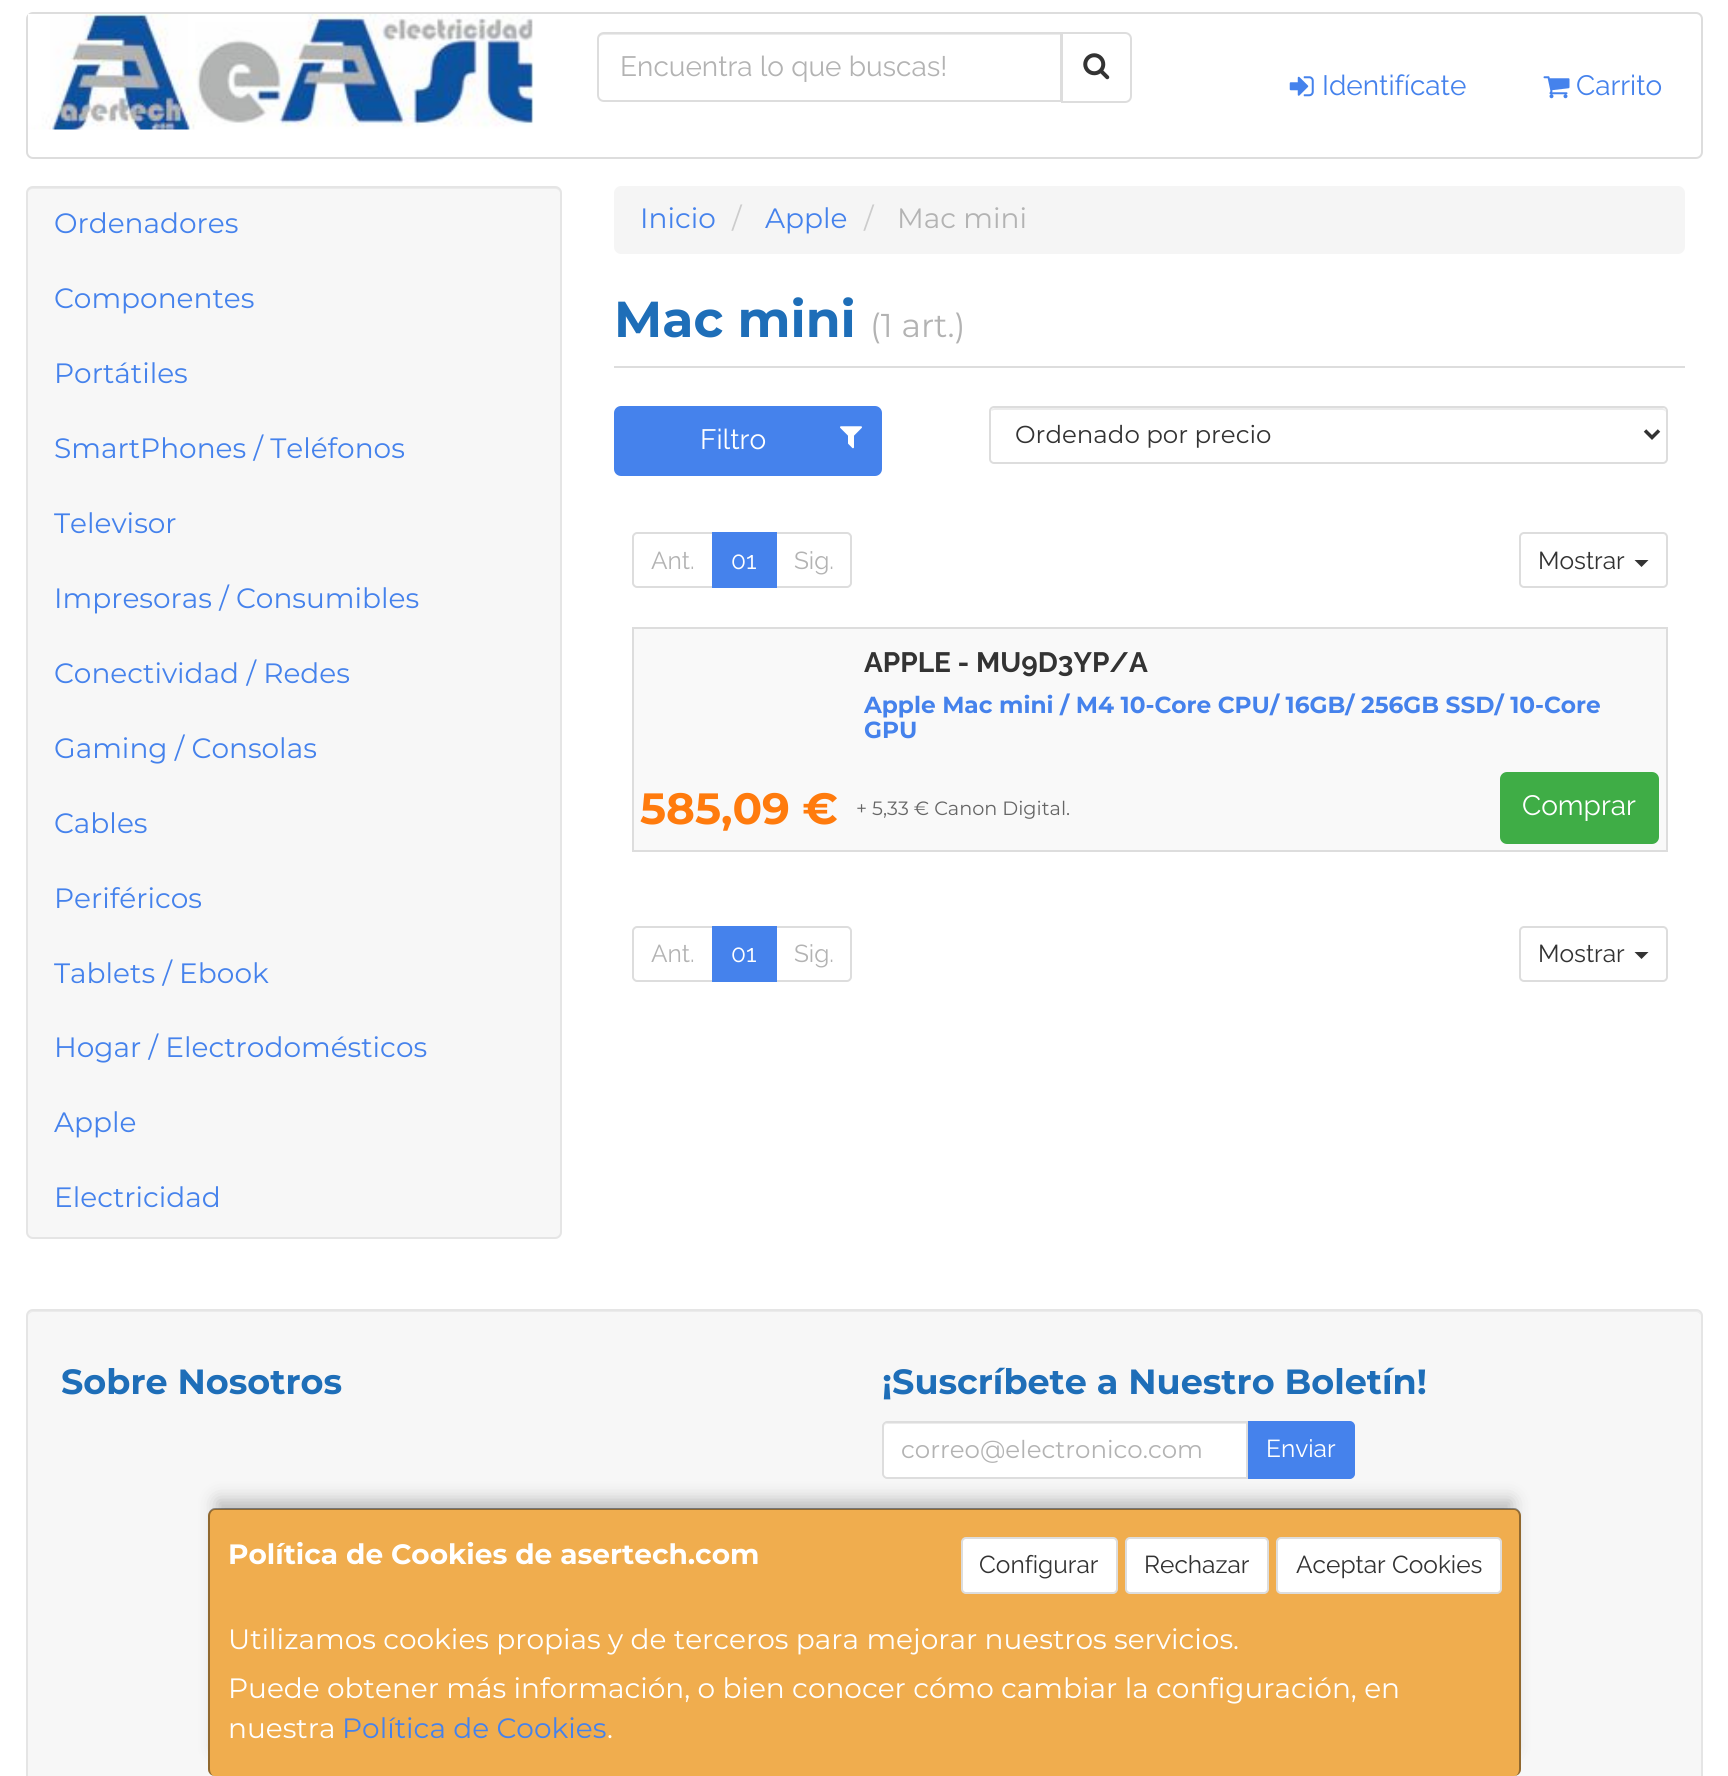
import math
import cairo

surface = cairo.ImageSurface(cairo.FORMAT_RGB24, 1728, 1776)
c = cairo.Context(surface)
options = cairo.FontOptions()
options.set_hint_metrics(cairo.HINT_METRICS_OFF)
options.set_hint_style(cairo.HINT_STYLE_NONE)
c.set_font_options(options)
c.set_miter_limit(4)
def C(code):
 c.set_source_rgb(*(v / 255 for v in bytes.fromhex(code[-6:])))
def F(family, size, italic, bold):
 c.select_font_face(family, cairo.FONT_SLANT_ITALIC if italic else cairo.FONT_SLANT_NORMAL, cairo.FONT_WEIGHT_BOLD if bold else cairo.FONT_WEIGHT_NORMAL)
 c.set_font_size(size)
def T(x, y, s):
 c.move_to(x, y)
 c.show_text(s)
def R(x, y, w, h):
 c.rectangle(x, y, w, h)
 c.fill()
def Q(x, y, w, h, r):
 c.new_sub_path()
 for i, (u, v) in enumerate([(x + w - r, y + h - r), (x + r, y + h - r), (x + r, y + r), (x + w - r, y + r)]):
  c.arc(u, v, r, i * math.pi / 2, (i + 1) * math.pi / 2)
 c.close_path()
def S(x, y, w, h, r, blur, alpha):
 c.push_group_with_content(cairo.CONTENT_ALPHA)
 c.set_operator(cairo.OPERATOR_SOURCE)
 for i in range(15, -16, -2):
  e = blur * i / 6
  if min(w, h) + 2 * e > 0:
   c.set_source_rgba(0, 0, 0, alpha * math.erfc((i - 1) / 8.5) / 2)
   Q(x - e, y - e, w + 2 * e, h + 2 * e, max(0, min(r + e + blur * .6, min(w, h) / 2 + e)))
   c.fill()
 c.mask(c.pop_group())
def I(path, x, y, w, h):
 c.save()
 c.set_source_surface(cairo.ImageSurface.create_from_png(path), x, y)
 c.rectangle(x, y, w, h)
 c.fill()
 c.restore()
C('ffffff')
c.paint()
Q(27,13,1675,145,6)
C('dddddd')
c.stroke()
I('1.png',28,14,506,116)
c.new_path()
c.move_to(1062,33)
c.line_to(1125,33)
c.curve_to(1128.5,33,1131,35.5,1131,39)
c.line_to(1131,96)
c.curve_to(1131,99.5,1128.5,102,1125,102)
c.line_to(1062,102)
c.close_path()
c.stroke()
C('ffffff')
c.new_path()
c.move_to(604,32)
c.line_to(1062,32)
c.line_to(1062,102)
c.line_to(604,102)
c.curve_to(600,102,597,99,597,95)
c.line_to(597,39)
c.curve_to(597,35,600,32,604,32)
c.close_path()
c.fill()
C('ececec')
c.new_path()
c.move_to(604,35)
c.line_to(1060,35)
c.line_to(1060,100)
c.line_to(1061,100)
c.line_to(1061,33)
c.line_to(604,33)
c.curve_to(602,33,599,35,599,37)
c.curve_to(600,36,602,35,604,35)
c.close_path()
c.fill()
c.new_path()
c.move_to(604,33)
c.line_to(1061,33)
c.line_to(1061,101)
c.line_to(604,101)
c.curve_to(600.5,101,598,98.5,598,95)
c.line_to(598,39)
c.curve_to(598,35.5,600.5,33,604,33)
c.close_path()
C('dddddd')
c.stroke()
F('Raleway',28,0,0)
C('b3b3b3')
T(620,76,'Encuentra lo que buscas!')
I('2.png',1083,53,27,27)
I('3.png',1289,76,25,21)
C('4582ec')
T(1322,95,'Identifícate')
I('4.png',1543,76,27,23)
T(1576,95,'Carrito')
C('f7f7f7')
Q(26,186,536,1053,7)
c.fill()
C('ebebeb')
c.new_path()
c.move_to(33,189)
c.line_to(555,189)
c.curve_to(558,189,560,191,560,194)
c.curve_to(560,191,559,187,555,187)
c.line_to(33,187)
c.curve_to(29,187,28,191,28,194)
c.curve_to(28,191,30,189,33,189)
c.close_path()
c.fill()
Q(27,187,534,1051,6)
C('e5e5e5')
c.stroke()
F('Montserrat',28,0,0)
C('4582ec')
T(54,233,'Ordenadores')
T(54,308,'Componentes')
T(54,383,'Portátiles')
T(54,458,'SmartPhones / Teléfonos')
T(54,533,'Televisor')
T(54,608,'Impresoras / Consumibles')
T(54,683,'Conectividad / Redes')
T(54,758,'Gaming / Consolas')
T(54,833,'Cables')
T(54,908,'Periféricos')
T(54,983,'Tablets / Ebook')
T(54,1057,'Hogar / Electrodomésticos')
T(54,1132,'Apple')
T(54,1207,'Electricidad')
C('f5f5f5')
Q(614,186,1071,68,7)
c.fill()
C('4582ec')
T(640,228,'Inicio')
C('cccccc')
T(732,228,'/')
C('4582ec')
T(765,228,'Apple')
C('cccccc')
T(864,228,'/')
C('b3b3b3')
T(897,228,'Mac mini')
C('dddddd')
R(614,366,1071,2)
F('Montserrat',50.5,0,1)
C('1e6eb8')
T(614,337,'Mac mini')
F('Montserrat',33,0,0)
C('b3b3b3')
T(870,337,'(1 art.)')
C('4582ec')
Q(615,407,266,68,6)
c.fill_preserve()
c.stroke()
F('Raleway',28,0,0)
C('ffffff')
T(700,449,'Filtro')
I('5.png',840,426,22,23)
C('ececec')
c.new_path()
c.move_to(994,410)
c.line_to(1662,410)
c.curve_to(1664,410,1666,411,1666,413)
c.line_to(1666,412)
c.curve_to(1666,410,1664,408,1662,408)
c.line_to(995,408)
c.curve_to(993,408,992,409,991,411)
c.close_path()
c.fill()
Q(990,407,677,56,4)
C('dddddd')
c.stroke()
c.new_path()
c.move_to(1645,430.5)
c.line_to(1652,437.5)
c.line_to(1659,430.5)
C('333333')
c.set_line_width(3.5)
c.stroke()
F('Montserrat',24.5,0,0)
T(1015,443,'Ordenado por precio')
c.new_path()
c.move_to(637,533)
c.line_to(713,533)
c.line_to(713,587)
c.line_to(637,587)
c.curve_to(635,587,633,585,633,583)
c.line_to(633,537)
c.curve_to(633,535,635,533,637,533)
c.close_path()
C('dddddd')
c.set_line_width(2)
c.stroke()
F('Raleway',24.5,0,0)
C('b3b3b3')
T(651,569,'Ant.')
c.new_path()
c.move_to(776,533)
c.line_to(847,533)
c.curve_to(849,533,851,535,851,537)
c.line_to(851,583)
c.curve_to(851,585,849,587,847,587)
c.line_to(776,587)
c.close_path()
C('dddddd')
c.stroke()
C('4582ec')
R(712,532,65,56)
C('ffffff')
T(731,569,'01')
C('b3b3b3')
T(794,569,'Sig.')
Q(1520,533,147,54,4)
C('dddddd')
c.stroke()
C('333333')
T(1538,569,'Mostrar')
c.new_path()
c.move_to(1634.5,560)
c.line_to(1648.5,560)
c.line_to(1641.5,567)
c.close_path()
c.fill()
C('f9f9f9')
c.rectangle(633,628,1034,223)
c.fill_preserve()
C('dddddd')
c.stroke()
F('Raleway',28,0,1)
C('333333')
T(864,672,'APPLE - MU9D3YP/A')
F('Montserrat',23.25,0,1)
C('4582ec')
T(864,713,'Apple Mac mini / M4 10-Core CPU/ 16GB/ 256GB SSD/ 10-Core')
T(864,738,'GPU')
F('Montserrat',43.75,0,1)
C('ff7b0d')
T(640,824,'585,09 €')
F('Montserrat',19.25,0,0)
C('666666')
T(856,815,'+ 5,33 € Canon Digital.')
C('3fad46')
Q(1501,773,157,70,6)
c.fill_preserve()
c.stroke()
F('Raleway',28,0,0)
C('ffffff')
T(1522,815,'Comprar')
c.new_path()
c.move_to(637,927)
c.line_to(713,927)
c.line_to(713,981)
c.line_to(637,981)
c.curve_to(635,981,633,979,633,977)
c.line_to(633,931)
c.curve_to(633,929,635,927,637,927)
c.close_path()
C('dddddd')
c.stroke()
F('Raleway',24.5,0,0)
C('b3b3b3')
T(651,962,'Ant.')
c.new_path()
c.move_to(776,927)
c.line_to(847,927)
c.curve_to(849,927,851,929,851,931)
c.line_to(851,977)
c.curve_to(851,979,849,981,847,981)
c.line_to(776,981)
c.close_path()
C('dddddd')
c.stroke()
C('4582ec')
R(712,926,65,56)
C('ffffff')
T(731,962,'01')
C('b3b3b3')
T(794,962,'Sig.')
Q(1520,927,147,54,4)
C('dddddd')
c.stroke()
C('333333')
T(1538,962,'Mostrar')
c.new_path()
c.move_to(1634.5,952)
c.line_to(1648.5,952)
c.line_to(1641.5,959)
c.close_path()
c.fill()
C('f7f7f7')
Q(26,1309,1677,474,7)
c.fill()
C('ebebeb')
c.new_path()
c.move_to(33,1312)
c.line_to(1696,1312)
c.curve_to(1699,1312,1701,1315,1701,1318)
c.curve_to(1701,1315,1700,1311,1696,1311)
c.line_to(33,1311)
c.curve_to(29,1311,28,1315,28,1318)
c.curve_to(28,1315,30,1312,33,1312)
c.close_path()
c.fill()
Q(27,1310,1675,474,6)
C('e5e5e5')
c.stroke()
F('Montserrat',35,0,1)
C('1e6eb8')
T(61,1394,'Sobre Nosotros')
T(882,1394,'¡Suscríbete a Nuestro Boletín!')
C('4582ec')
c.new_path()
c.move_to(1247,1422)
c.line_to(1350,1422)
c.curve_to(1352,1422,1354,1424,1354,1426)
c.line_to(1354,1474)
c.curve_to(1354,1476,1352,1478,1350,1478)
c.line_to(1247,1478)
c.close_path()
c.fill_preserve()
c.stroke()
C('ffffff')
c.new_path()
c.move_to(887,1421)
c.line_to(1248,1421)
c.line_to(1248,1479)
c.line_to(887,1479)
c.curve_to(884,1479,882,1477,882,1474)
c.line_to(882,1426)
c.curve_to(882,1423,884,1421,887,1421)
c.close_path()
c.fill()
C('ececec')
c.new_path()
c.move_to(887,1424)
c.line_to(1246,1424)
c.line_to(1246,1423)
c.line_to(888,1423)
c.curve_to(885,1423,884,1425,884,1428)
c.curve_to(884,1426,885,1424,887,1424)
c.close_path()
c.fill()
c.new_path()
c.move_to(887,1422)
c.line_to(1247,1422)
c.line_to(1247,1478)
c.line_to(887,1478)
c.curve_to(885,1478,883,1476,883,1474)
c.line_to(883,1426)
c.curve_to(883,1424,885,1422,887,1422)
c.close_path()
C('dddddd')
c.stroke()
F('Montserrat',24.5,0,0)
C('b3b3b3')
T(901,1458,'correo@electronico.com')
F('Raleway',24.5,0,0)
C('ffffff')
T(1266,1457,'Enviar')
C('000000')
S(217,1500,1295,250,0,9,.25)
C('f0ad4e')
Q(208,1509,1313,267,7)
c.fill()
c.set_source_rgba(0,0,0,0.4)
c.set_fill_rule(cairo.FILL_RULE_EVEN_ODD)
c.new_path()
c.move_to(215,1508)
c.line_to(1514,1508)
c.curve_to(1518,1508,1521,1512,1521,1516)
c.line_to(1521,1769)
c.curve_to(1521,1773,1518,1776,1514,1776)
c.line_to(215,1776)
c.curve_to(211,1776,208,1773,208,1769)
c.line_to(208,1516)
c.curve_to(208,1512,211,1508,215,1508)
c.close_path()
c.move_to(215,1510)
c.line_to(1514,1510)
c.curve_to(1517,1510,1519,1513,1519,1516)
c.line_to(1519,1769)
c.curve_to(1519,1773,1517,1776,1514,1776)
c.line_to(215,1776)
c.curve_to(212,1776,210,1773,210,1769)
c.line_to(210,1516)
c.curve_to(210,1513,212,1510,215,1510)
c.close_path()
c.fill()
F('Montserrat',28,0,1)
C('ffffff')
T(228,1564,'Política de Cookies de asertech.com')
Q(962,1538,155,55,4)
c.fill_preserve()
C('dddddd')
c.stroke()
F('Raleway',24.5,0,0)
C('333333')
T(979,1573,'Configurar')
C('ffffff')
Q(1126,1538,142,55,4)
c.fill_preserve()
C('dddddd')
c.stroke()
C('333333')
T(1144,1573,'Rechazar')
C('ffffff')
Q(1277,1538,224,55,4)
c.fill_preserve()
C('dddddd')
c.stroke()
C('333333')
T(1296,1573,'Aceptar Cookies')
F('Montserrat',28,0,0)
C('ffffff')
T(228,1649,'Utilizamos cookies propias y de terceros para mejorar nuestros servicios.')
T(228,1698,'Puede obtener más información, o bien conocer cómo cambiar la configuración, en')
T(228,1738,'nuestra')
C('4582ec')
T(342,1738,'Política de Cookies')
C('ffffff')
T(607,1738,'.')
surface.write_to_png('o.png')
